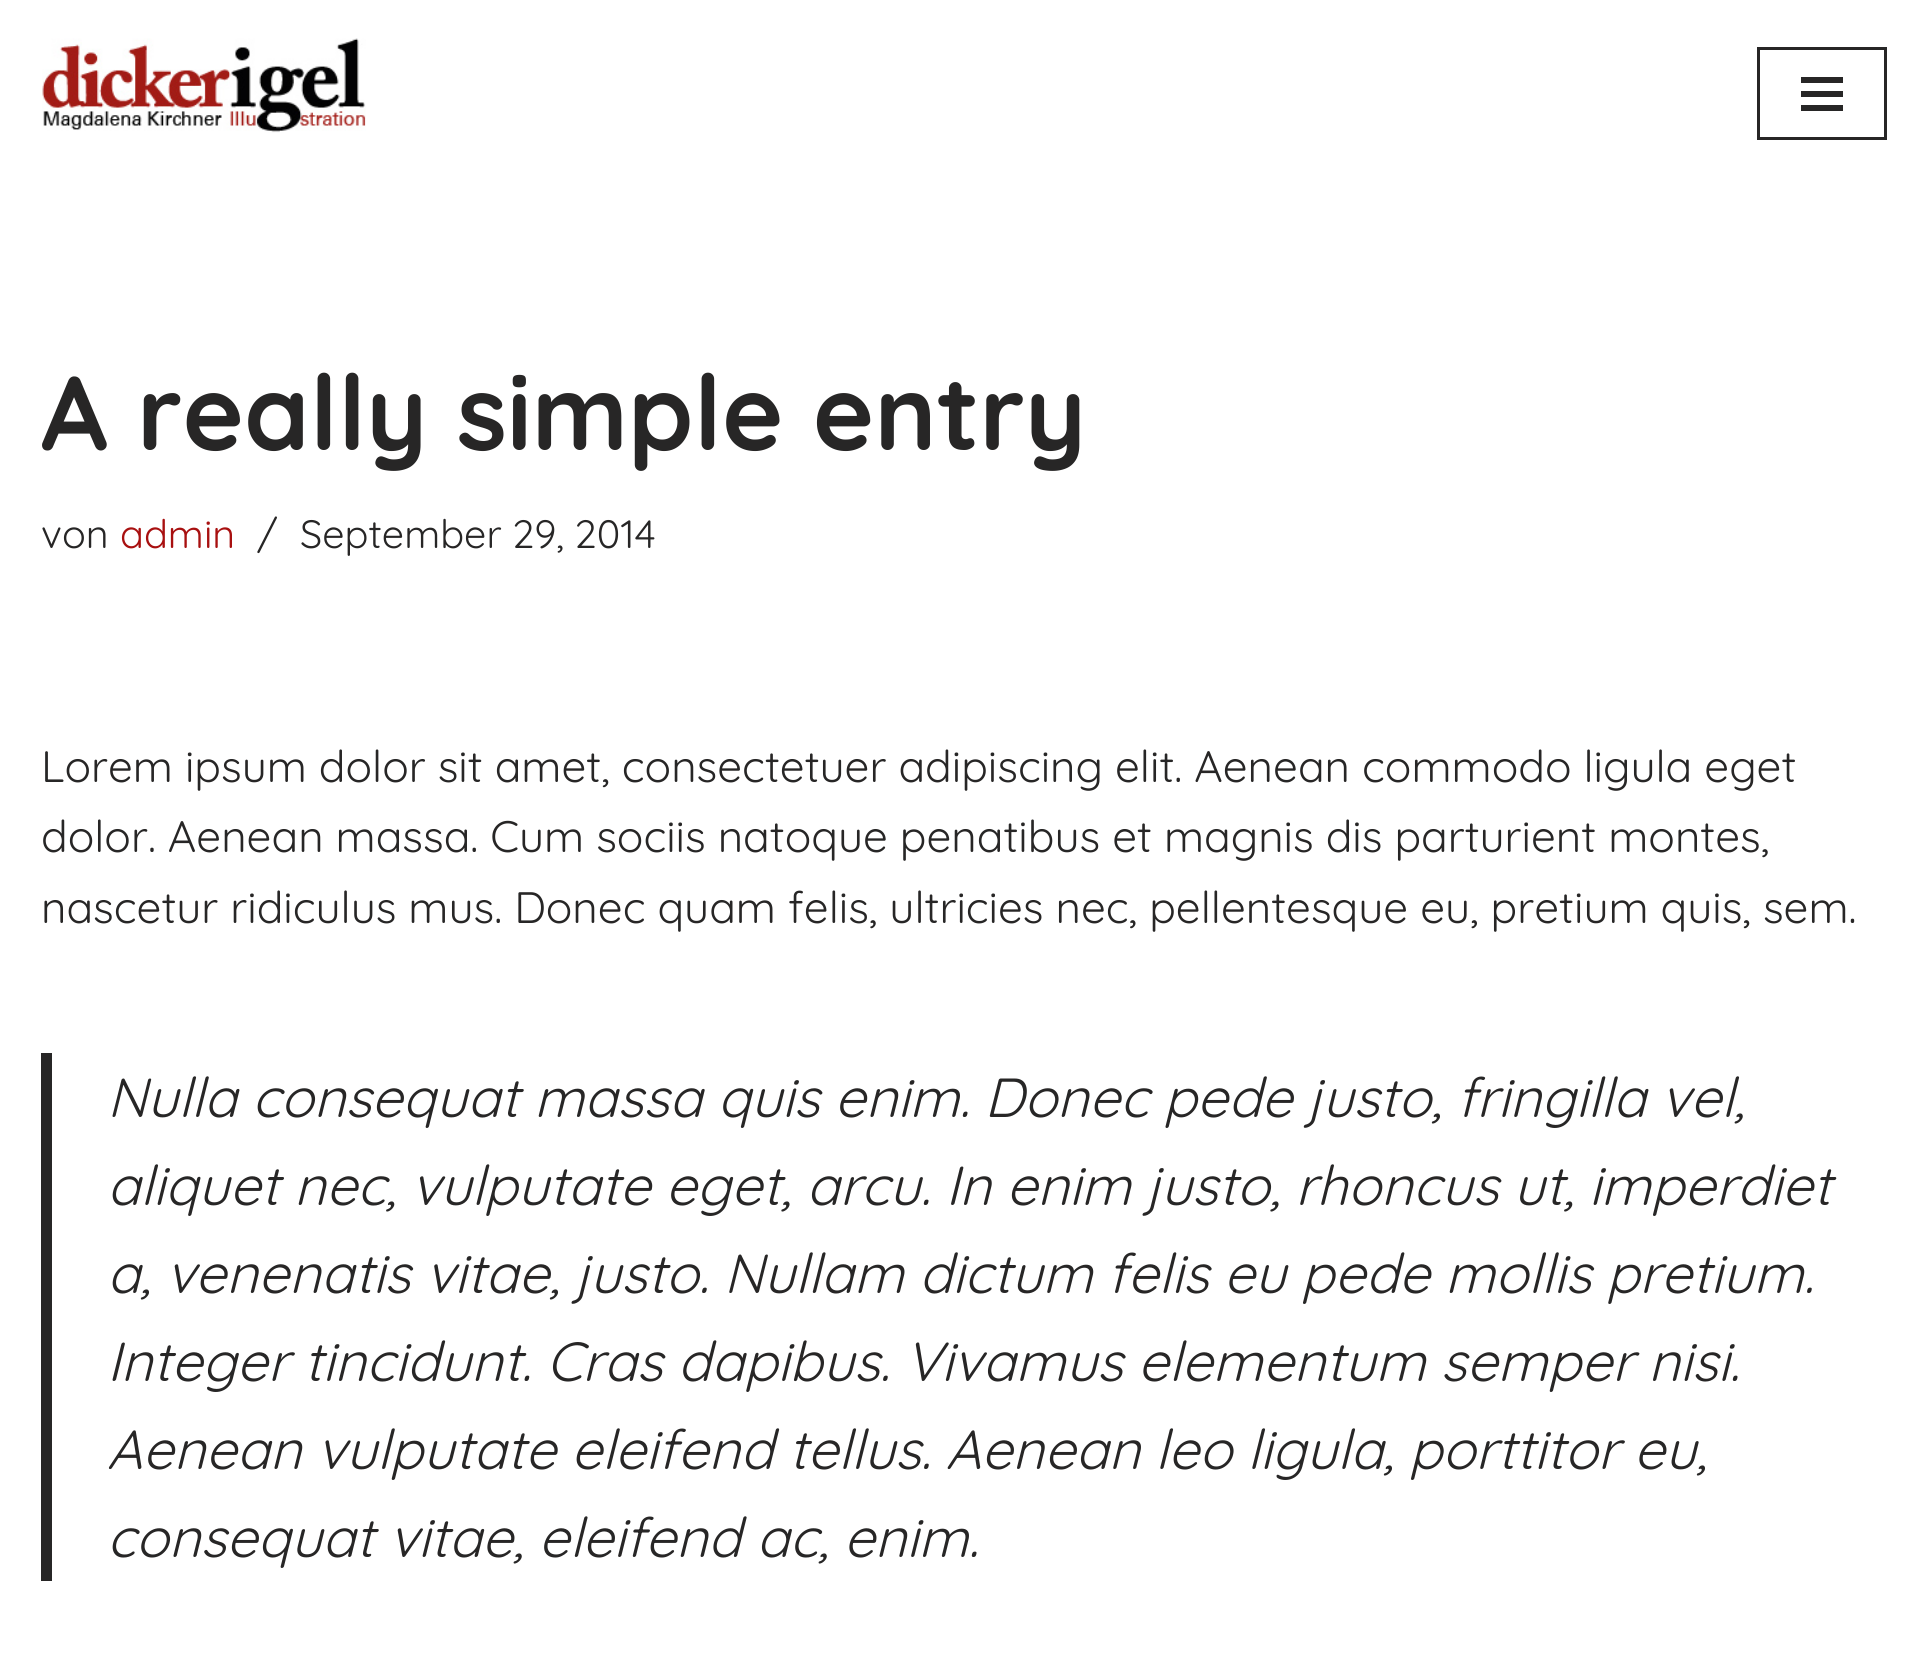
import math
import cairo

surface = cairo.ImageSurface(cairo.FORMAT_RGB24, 1927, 1663)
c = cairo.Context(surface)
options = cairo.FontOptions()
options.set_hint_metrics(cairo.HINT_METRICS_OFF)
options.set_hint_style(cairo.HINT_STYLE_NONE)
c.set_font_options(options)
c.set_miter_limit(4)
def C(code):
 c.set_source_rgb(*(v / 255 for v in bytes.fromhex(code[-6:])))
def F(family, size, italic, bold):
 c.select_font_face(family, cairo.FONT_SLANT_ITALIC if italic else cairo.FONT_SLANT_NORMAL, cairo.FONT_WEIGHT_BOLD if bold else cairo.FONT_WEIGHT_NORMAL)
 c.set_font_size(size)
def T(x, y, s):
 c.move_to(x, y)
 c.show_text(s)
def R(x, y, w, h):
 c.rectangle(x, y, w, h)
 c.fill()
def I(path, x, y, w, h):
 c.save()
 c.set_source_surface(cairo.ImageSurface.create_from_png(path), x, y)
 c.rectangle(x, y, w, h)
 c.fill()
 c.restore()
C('ffffff')
c.paint()
I('1.png',42,38,324,95)
c.rectangle(1758.5,48.5,127,90)
C('272626')
c.set_line_width(3)
c.stroke()
R(1801,77,42,6)
R(1801,91,42,6)
R(1801,105,42,6)
F('Quicksand',104.5,0,1)
T(41,450,'A really simple entry')
F('Quicksand Light',39.5,0,0)
T(41,548,'von')
C('a81010')
T(120,548,'admin')
C('272626')
T(257,548,'/')
T(300,548,'September 29, 2014')
F('Quicksand Light',44,0,0)
T(41,782,'Lorem ipsum dolor sit amet, consectetuer adipiscing elit. Aenean commodo ligula eget')
T(41,852,'dolor. Aenean massa. Cum sociis natoque penatibus et magnis dis parturient montes,')
T(41,923,'nascetur ridiculus mus. Donec quam felis, ultricies nec, pellentesque eu, pretium quis, sem.')
R(41,1053,11,528)
F('Quicksand Light',55,1,0)
T(107,1117,'Nulla consequat massa quis enim. Donec pede justo, fringilla vel,')
T(107,1205,'aliquet nec, vulputate eget, arcu. In enim justo, rhoncus ut, imperdiet')
T(107,1293,'a, venenatis vitae, justo. Nullam dictum felis eu pede mollis pretium.')
T(107,1381,'Integer tincidunt. Cras dapibus. Vivamus elementum semper nisi.')
T(107,1469,'Aenean vulputate eleifend tellus. Aenean leo ligula, porttitor eu,')
T(107,1557,'consequat vitae, eleifend ac, enim.')
surface.write_to_png('o.png')
